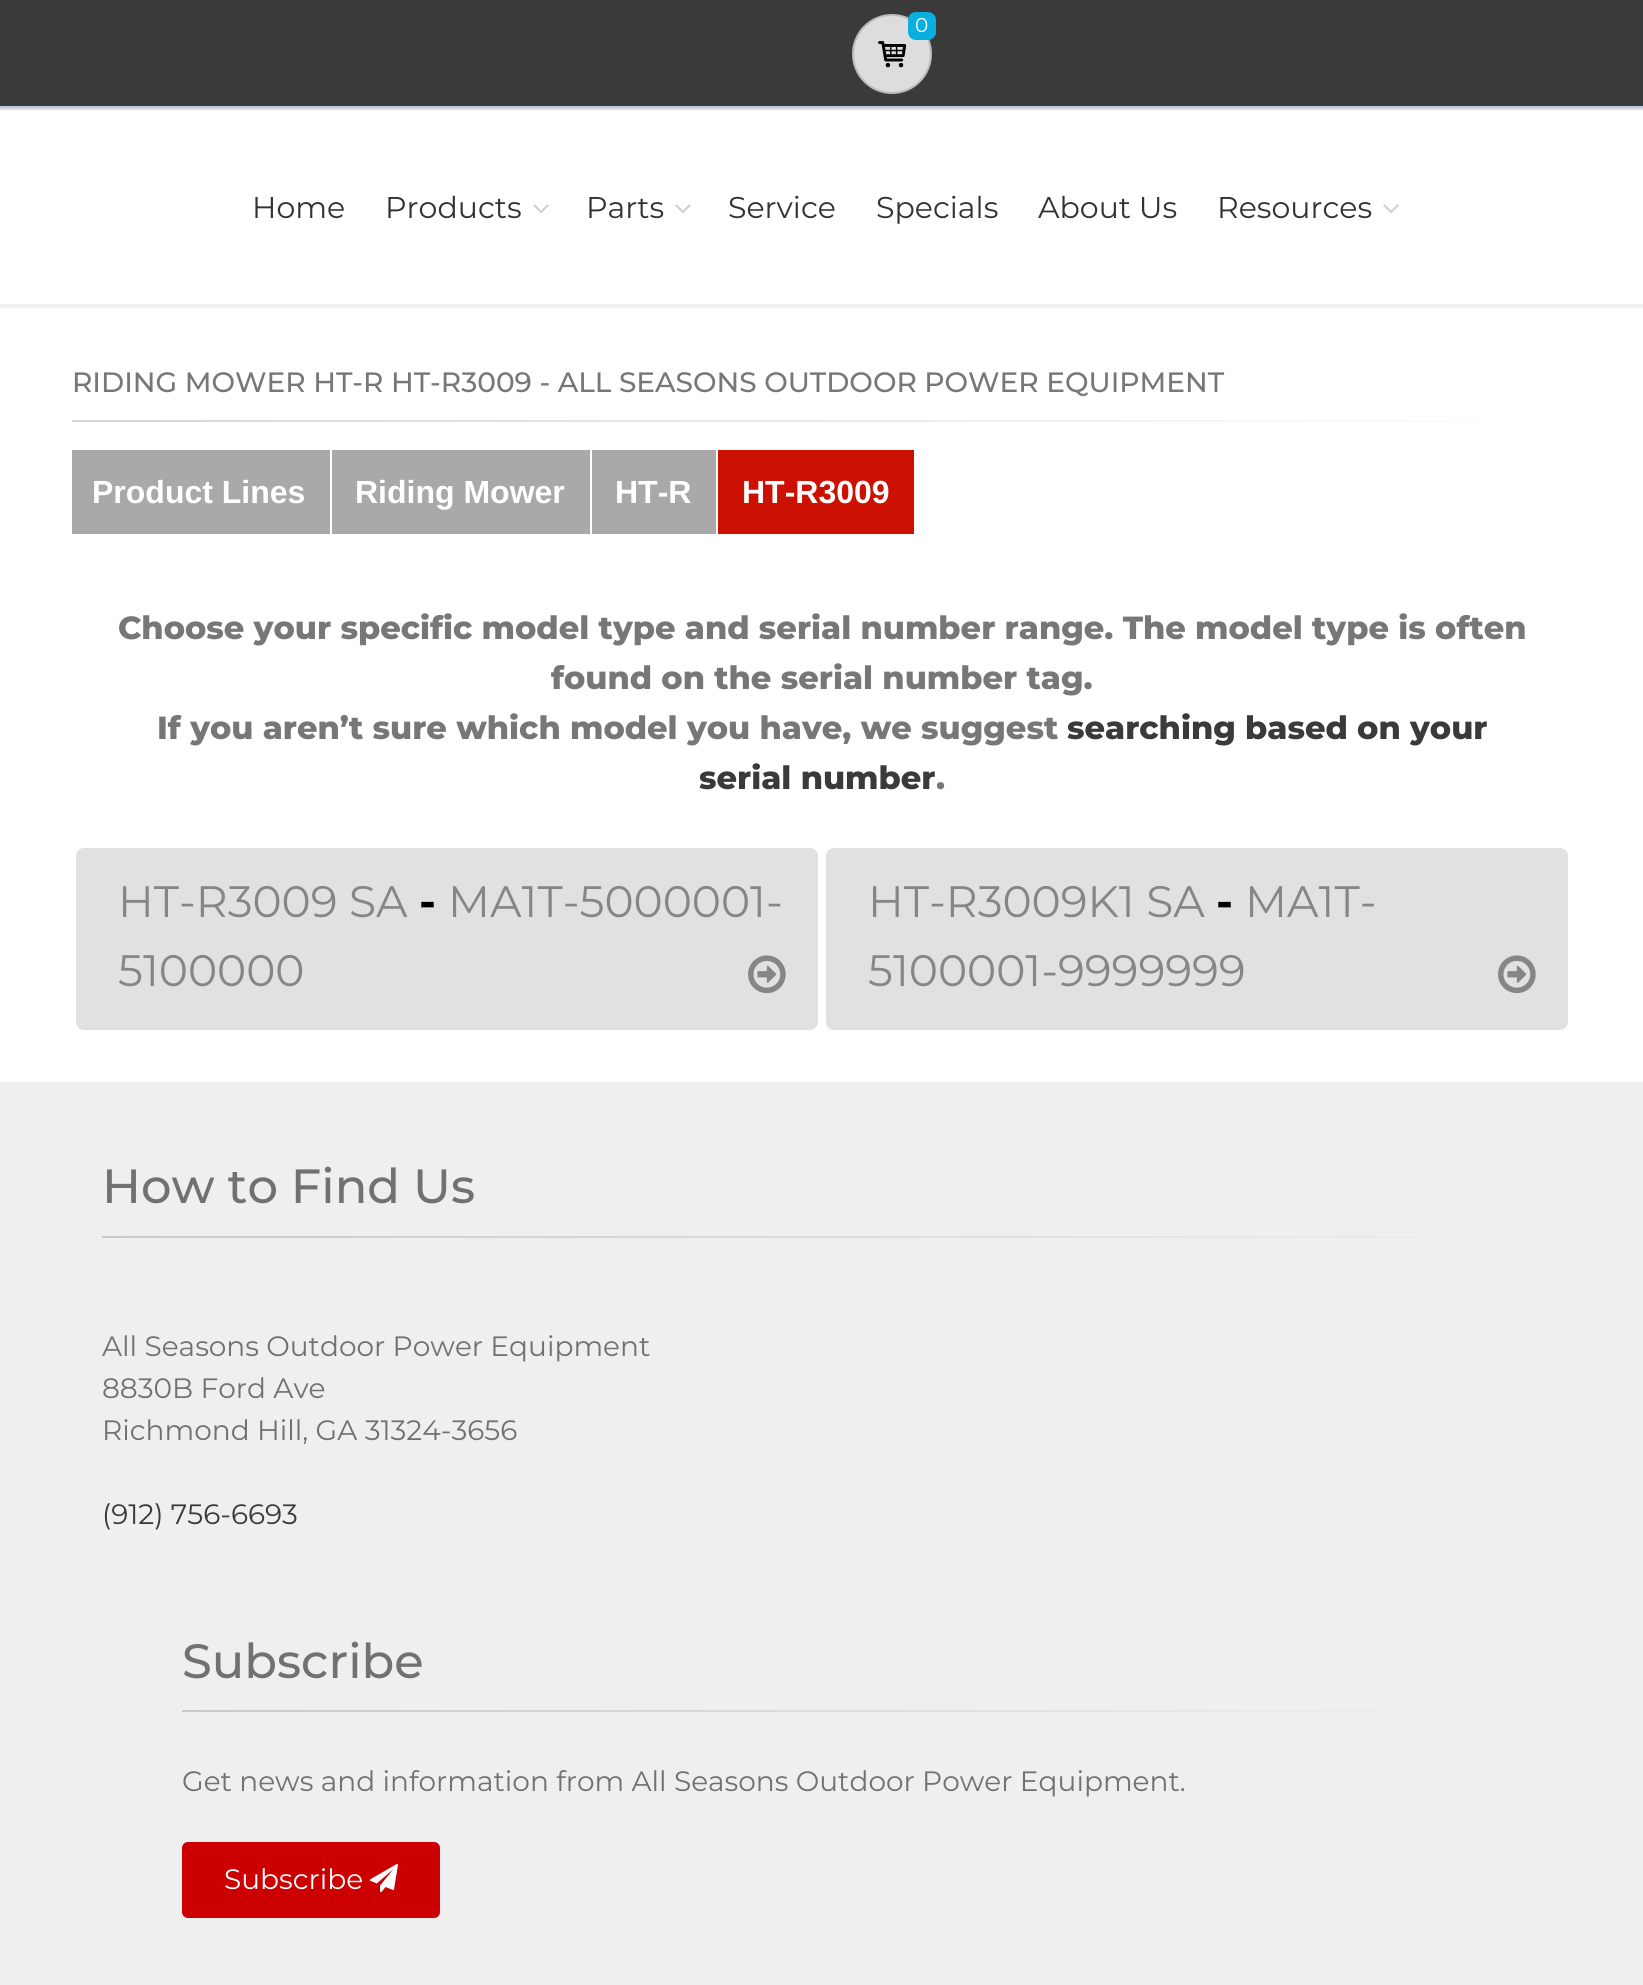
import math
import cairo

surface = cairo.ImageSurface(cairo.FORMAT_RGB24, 1643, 1985)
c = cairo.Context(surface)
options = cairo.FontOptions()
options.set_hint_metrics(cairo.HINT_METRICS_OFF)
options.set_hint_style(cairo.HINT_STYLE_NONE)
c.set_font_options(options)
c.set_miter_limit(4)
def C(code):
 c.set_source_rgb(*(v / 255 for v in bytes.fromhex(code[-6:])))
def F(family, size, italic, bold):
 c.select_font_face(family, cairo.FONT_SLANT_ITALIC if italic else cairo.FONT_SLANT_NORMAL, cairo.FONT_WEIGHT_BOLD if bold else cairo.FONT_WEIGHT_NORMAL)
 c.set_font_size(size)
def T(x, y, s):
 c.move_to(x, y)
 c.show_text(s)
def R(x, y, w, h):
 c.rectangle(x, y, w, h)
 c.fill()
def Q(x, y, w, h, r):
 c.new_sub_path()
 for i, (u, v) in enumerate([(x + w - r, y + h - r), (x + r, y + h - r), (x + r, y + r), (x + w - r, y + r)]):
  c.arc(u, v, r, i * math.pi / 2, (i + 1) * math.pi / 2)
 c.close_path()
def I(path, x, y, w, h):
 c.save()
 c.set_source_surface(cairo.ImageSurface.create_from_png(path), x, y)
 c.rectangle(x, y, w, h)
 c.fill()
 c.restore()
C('ffffff')
c.paint()
C('3a3a3a')
R(0,0,1643,106)
C('bbc9e3')
R(0,106,1643,2)
C('dddddd')
c.arc(892,54,40,0,2 * math.pi)
c.fill()
c.arc(892,54,39,0,2 * math.pi)
c.set_source_rgba(0,0,0,0.15)
c.stroke()
C('09afdf')
Q(908,12,28,28,8)
c.fill()
F('Montserrat',20,0,0)
C('ffffff')
T(915,32,'0')
I('1.png',878,41,29,27)
C('dddddd')
R(0,108,1643,2)
C('f1f1f1')
R(0,304,1643,4)
F('Montserrat',30,0,0)
C('333333')
T(252,218,'Home')
T(385,218,'Products')
I('2.png',533,204,16,9)
T(586,218,'Parts')
I('2.png',675,204,16,9)
T(728,218,'Service')
T(876,218,'Specials')
T(1038,218,'About Us')
T(1217,218,'Resources')
I('2.png',1383,204,16,9)
F('Montserrat Medium',28,0,0)
C('777777')
T(72,392,'RIDING MOWER HT-R HT-R3009 - ALL SEASONS OUTDOOR POWER EQUIPMENT')
gradient = cairo.LinearGradient(72,421,1572,421)
gradient.add_color_stop_rgba(0,0.839,0.839,0.839,1)
gradient.add_color_stop_rgba(1,1,1,1,1)
c.set_source(gradient)
R(72,420,1409,2)
C('a9a9a9')
R(72,450,258,84)
F('Liberation Sans',32,0,1)
C('ffffff')
T(92,503,'Product Lines')
C('a9a9a9')
R(332,450,258,84)
C('ffffff')
T(355,503,'Riding Mower')
C('a9a9a9')
R(592,450,124,84)
C('ffffff')
T(615,503,'HT-R')
C('cc1001')
R(718,450,196,84)
C('ffffff')
T(742,503,'HT-R3009')
F('Montserrat ExtraBold',32,0,0)
C('777777')
T(118,639,'Choose your specific model type and serial number range. The model type is often')
T(551,689,'found on the serial number tag.')
T(157,739,'If you aren’t sure which model you have, we suggest')
C('3a3a3a')
T(1067,739,'searching based on your')
T(699,789,'serial number')
C('777777')
T(936,789,'.')
C('e1e1e1')
Q(76,848,742,182,8)
c.fill()
F('Montserrat',44,0,0)
C('868686')
T(118,917,'HT-R3009 SA')
F('Montserrat',44,0,1)
C('000000')
T(419,917,'-')
F('Montserrat',44,0,0)
C('868686')
T(448,917,'MA1T-5000001-')
T(118,986,'5100000')
I('3.png',748,955,38,39)
C('e1e1e1')
Q(826,848,742,182,8)
c.fill()
C('868686')
T(868,917,'HT-R3009K1 SA')
F('Montserrat',44,0,1)
C('000000')
T(1216,917,'-')
F('Montserrat',44,0,0)
C('868686')
T(1245,917,'MA1T-')
T(868,986,'5100001-9999999')
I('3.png',1498,955,38,39)
C('efefef')
R(0,1082,1643,903)
F('Montserrat Medium',48,0,0)
C('717171')
T(102,1203,'How to Find Us')
gradient = cairo.LinearGradient(102,1237,1542,1237)
gradient.add_color_stop_rgba(0,0.788,0.788,0.788,1)
gradient.add_color_stop_rgba(1,0.937,0.937,0.937,1)
c.set_source(gradient)
R(102,1236,1345,2)
F('Montserrat',28,0,0)
C('717171')
T(102,1356,'All Seasons Outdoor Power Equipment')
T(102,1398,'8830B Ford Ave')
T(102,1440,'Richmond Hill, GA 31324-3656')
C('3a3a3a')
T(102,1524,'(912) 756-6693')
F('Montserrat Medium',48,0,0)
C('717171')
T(182,1678,'Subscribe')
gradient = cairo.LinearGradient(182,1711,1462,1711)
gradient.add_color_stop_rgba(0,0.788,0.788,0.788,1)
gradient.add_color_stop_rgba(1,0.937,0.937,0.937,1)
c.set_source(gradient)
R(182,1710,1196,2)
F('Montserrat',28,0,0)
C('717171')
T(182,1791,'Get news and information from All Seasons Outdoor Power Equipment.')
C('cc0000')
Q(183,1843,256,74,5)
c.fill_preserve()
c.stroke()
C('ffffff')
T(224,1889,'Subscribe')
I('4.png',370,1864,28,28)
surface.write_to_png('o.png')
